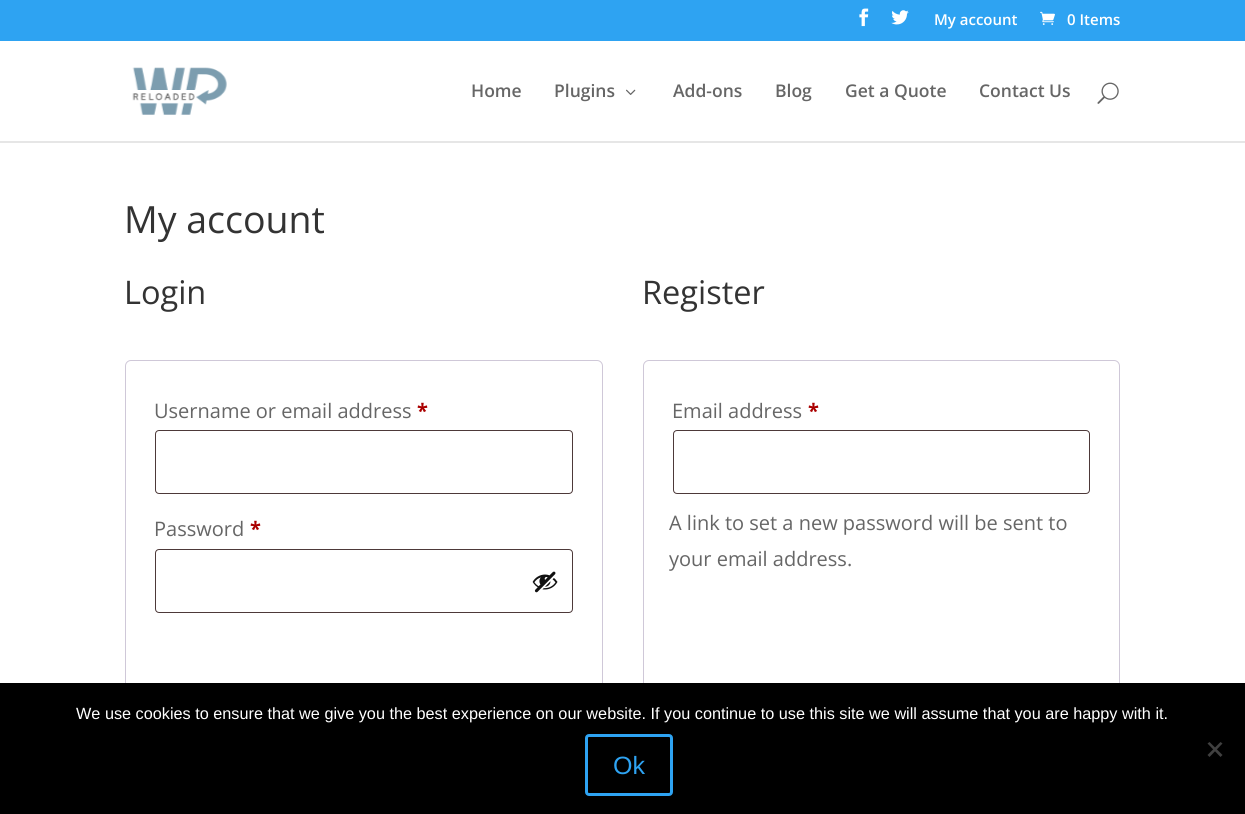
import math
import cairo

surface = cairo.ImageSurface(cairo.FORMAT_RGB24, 1245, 814)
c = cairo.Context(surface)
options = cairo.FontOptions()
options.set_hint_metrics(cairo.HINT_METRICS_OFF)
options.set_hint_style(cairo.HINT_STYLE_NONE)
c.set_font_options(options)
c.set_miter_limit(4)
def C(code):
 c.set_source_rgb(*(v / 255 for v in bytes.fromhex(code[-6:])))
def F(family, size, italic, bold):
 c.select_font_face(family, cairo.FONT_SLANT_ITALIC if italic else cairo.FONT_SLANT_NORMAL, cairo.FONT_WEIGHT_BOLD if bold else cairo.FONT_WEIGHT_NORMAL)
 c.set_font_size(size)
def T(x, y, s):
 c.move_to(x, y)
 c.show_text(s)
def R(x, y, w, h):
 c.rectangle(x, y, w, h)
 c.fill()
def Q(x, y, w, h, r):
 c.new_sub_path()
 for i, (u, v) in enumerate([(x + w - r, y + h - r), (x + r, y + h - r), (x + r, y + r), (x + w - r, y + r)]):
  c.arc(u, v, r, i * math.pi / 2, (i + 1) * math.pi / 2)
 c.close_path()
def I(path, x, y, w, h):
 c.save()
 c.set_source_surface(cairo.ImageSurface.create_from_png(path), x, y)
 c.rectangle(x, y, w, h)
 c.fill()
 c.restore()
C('ffffff')
c.paint()
C('2ea3f2')
R(0,0,1245,41)
I('1.png',859,8,10,19)
I('2.png',891,10,18,15)
F('Open Sans SemiBold',15,0,0)
C('ffffff')
T(934,25,'My account')
I('3.png',1040,11,15,14)
T(1067,25,'0 Items')
C('e6e6e6')
R(0,141,1245,2)
I('4.png',132,67,95,48)
F('Open Sans SemiBold',17.5,0,0)
C('666666')
T(471,97,'Home')
T(554,97,'Plugins')
I('5.png',626,89,10,6)
T(673,97,'Add-ons')
T(775,97,'Blog')
T(845,97,'Get a Quote')
T(979,97,'Contact Us')
I('6.png',1097,82,22,22)
F('Open Sans',37.5,0,0)
C('333333')
T(124,233,'My account')
F('Open Sans',32.5,0,0)
T(124,304,'Login')
Q(125.5,360.5,477,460,5.5)
C('cfc8d8')
c.set_line_width(1)
c.stroke()
F('Open Sans',20,0,0)
C('666666')
T(154,418,'Username or email address')
F('Open Sans',20,0,1)
C('aa0000')
T(417,418,'*')
Q(155.5,430.5,417,63,3.5)
C('4d3939')
c.stroke()
F('Open Sans',20,0,0)
C('666666')
T(154,536,'Password')
F('Open Sans',20,0,1)
C('aa0000')
T(250,536,'*')
Q(155.5,549.5,417,63,3.5)
C('4d3939')
c.stroke()
I('7.png',532,571,26,22)
F('Open Sans',32.5,0,0)
C('333333')
T(642,304,'Register')
Q(643.5,360.5,476,438,5.5)
C('cfc8d8')
c.stroke()
F('Open Sans',20,0,0)
C('666666')
T(672,418,'Email address')
F('Open Sans',20,0,1)
C('aa0000')
T(808,418,'*')
Q(673.5,430.5,416,63,3.5)
C('4d3939')
c.stroke()
F('Open Sans',20,0,0)
C('666666')
T(669,530,'A link to set a new password will be sent to')
T(669,566,'your email address.')
C('000000')
R(0,683,1245,131)
F('Liberation Sans',16.25,0,0)
C('ffffff')
T(76,719,'We use cookies to ensure that we give you the best experience on our website. If you continue to use this site we will assume that you are happy with it.')
C('404040')
c.new_path()
c.move_to(1220.5,742)
c.line_to(1222.5,743.5)
c.line_to(1209.5,757)
c.line_to(1207.5,755)
c.close_path()
c.fill()
c.new_path()
c.move_to(1207.5,743.5)
c.line_to(1209.5,742)
c.line_to(1222.5,755)
c.line_to(1220.5,757)
c.close_path()
c.fill()
Q(586.5,735.5,85,59,2.5)
C('2ea3f2')
c.set_line_width(3)
c.stroke()
F('Liberation Sans',25,0,0)
T(613,774,'Ok')
surface.write_to_png('o.png')
